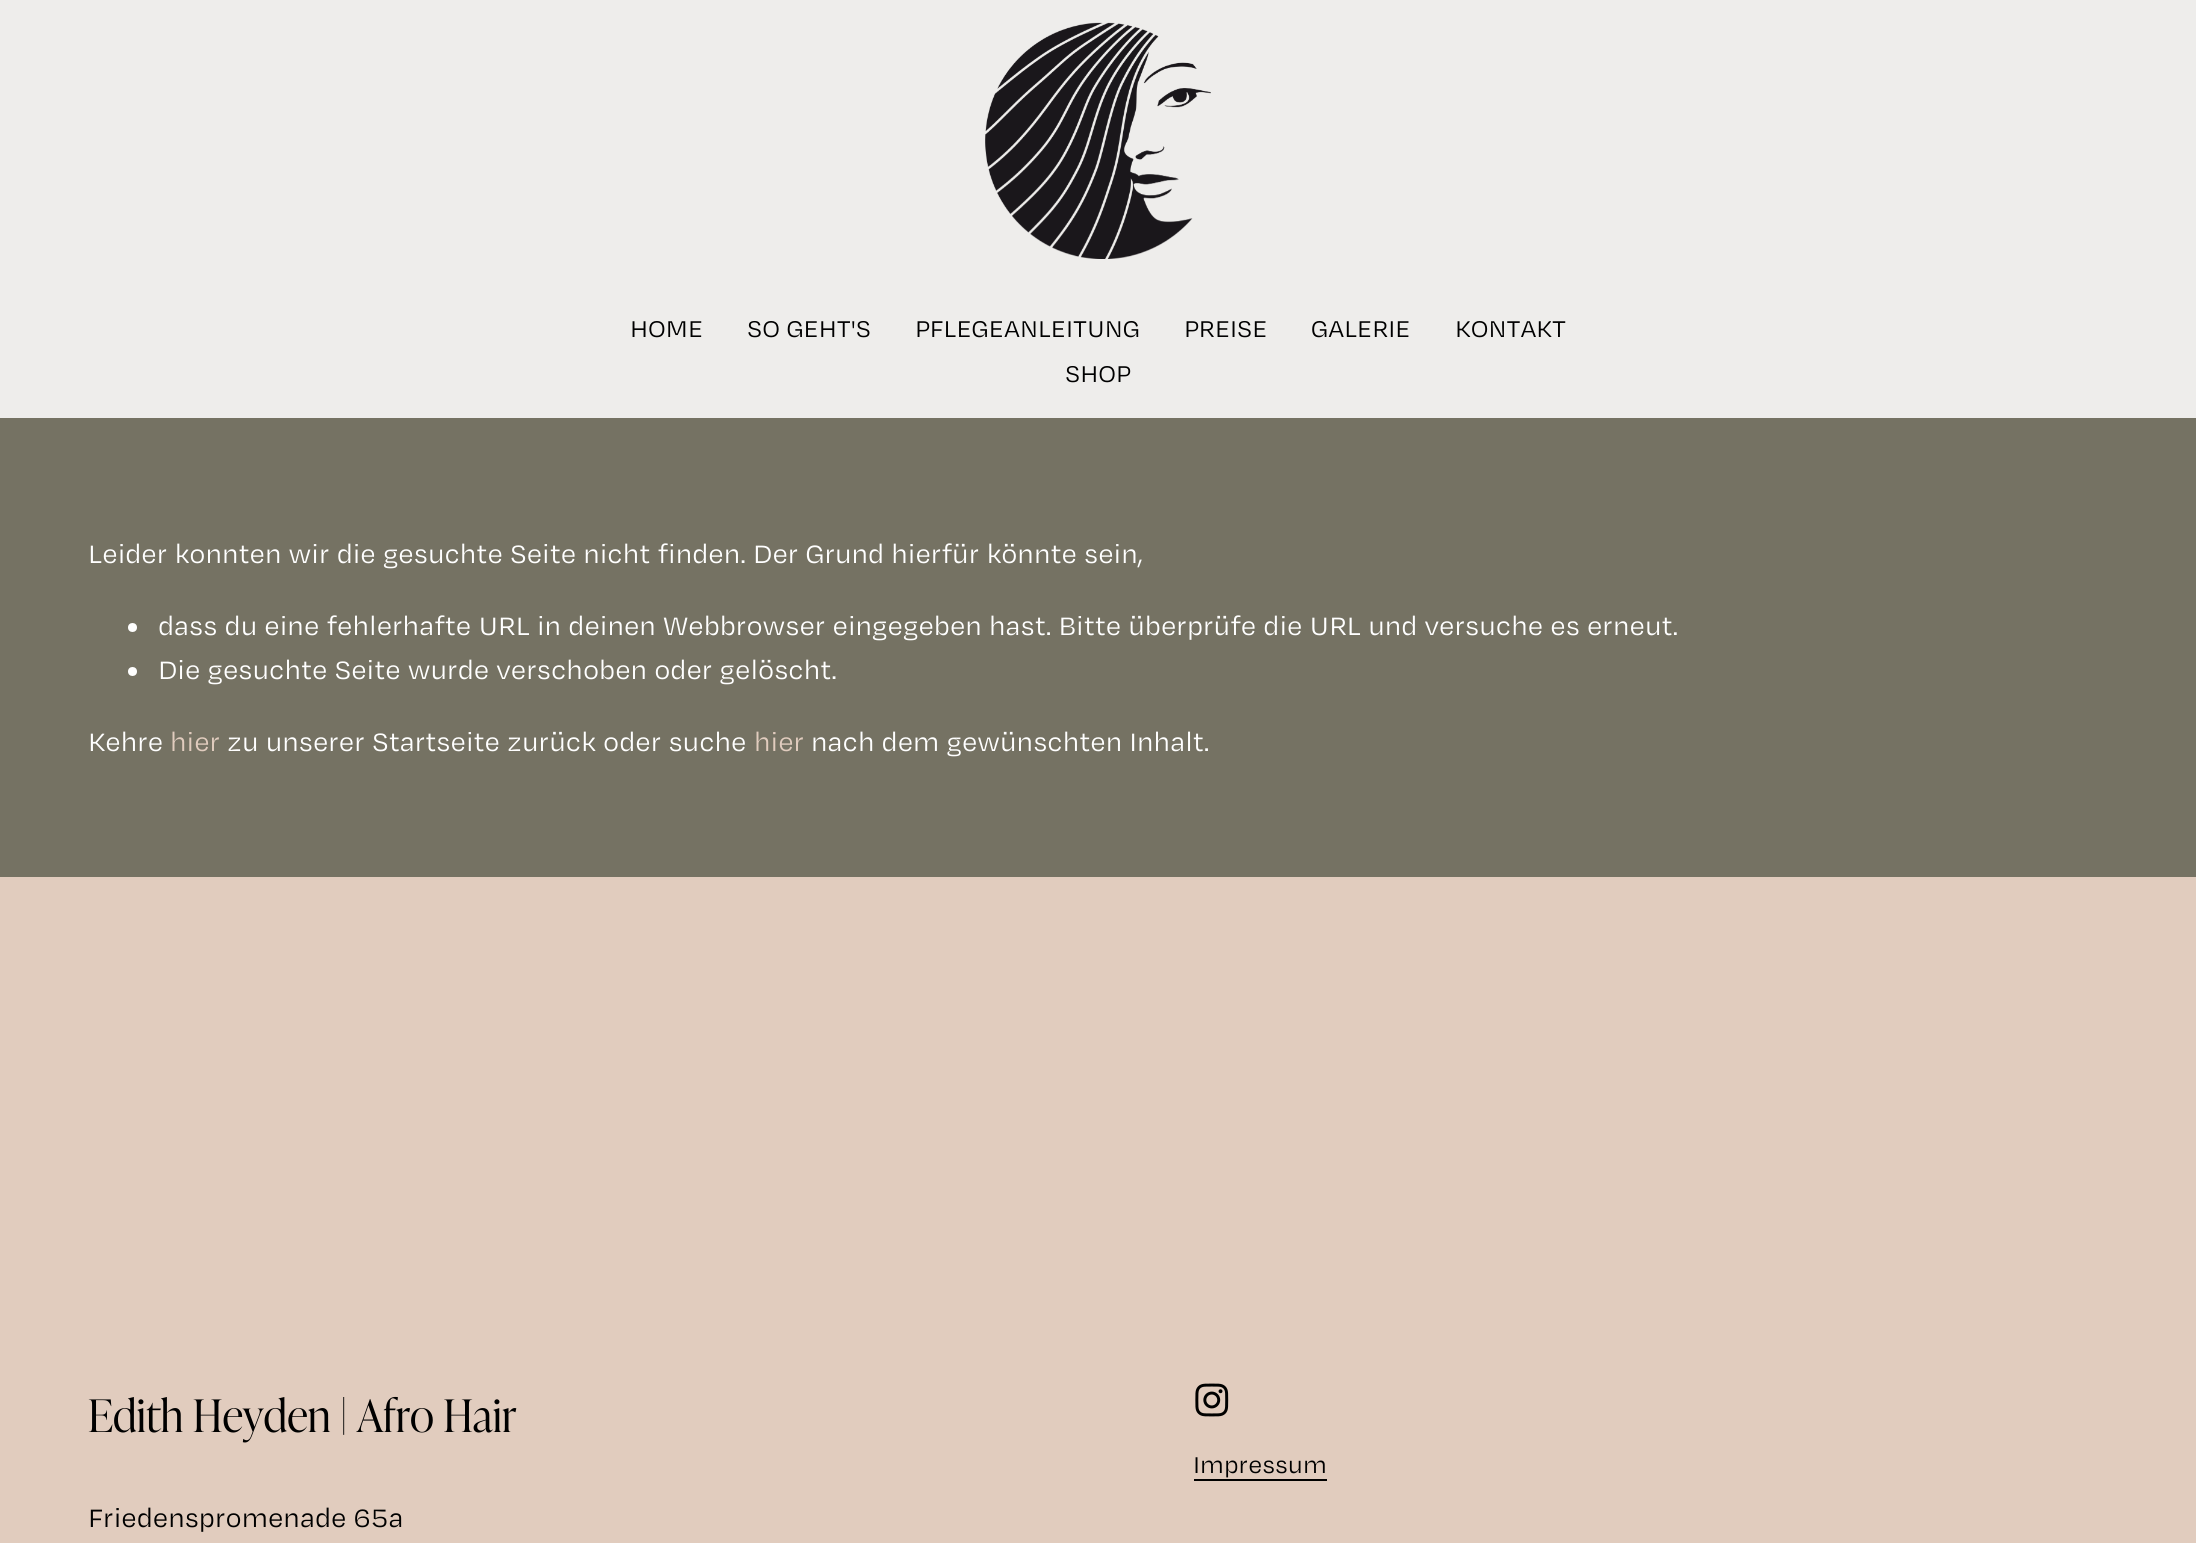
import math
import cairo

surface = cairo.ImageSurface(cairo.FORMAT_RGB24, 2196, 1543)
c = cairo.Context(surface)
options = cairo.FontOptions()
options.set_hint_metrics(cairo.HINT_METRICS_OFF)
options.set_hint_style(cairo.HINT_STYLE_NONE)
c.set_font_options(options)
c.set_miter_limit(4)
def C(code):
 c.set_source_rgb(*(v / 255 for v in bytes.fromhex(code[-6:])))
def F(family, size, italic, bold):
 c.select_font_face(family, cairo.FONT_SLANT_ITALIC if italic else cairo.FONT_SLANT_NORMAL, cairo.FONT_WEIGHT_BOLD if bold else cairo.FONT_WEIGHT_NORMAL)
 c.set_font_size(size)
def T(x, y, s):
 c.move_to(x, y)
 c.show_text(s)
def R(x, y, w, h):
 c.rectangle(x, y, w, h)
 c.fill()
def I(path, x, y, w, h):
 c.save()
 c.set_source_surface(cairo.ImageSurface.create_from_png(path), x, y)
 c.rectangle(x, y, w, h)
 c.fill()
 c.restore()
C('757263')
c.paint()
C('eeedeb')
R(0,0,2196,418)
I('1.png',985,22,226,237)
F('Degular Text',26.25,0,0)
C('000000')
T(630,337,'HOME')
T(747,337,'SO GEHT\'S')
T(915,337,'PFLEGEANLEITUNG')
T(1184,337,'PREISE')
T(1311,337,'GALERIE')
T(1455,337,'KONTAKT')
T(1065,382,'SHOP')
F('Degular Text',28.9,0,0)
C('ffffff')
T(88,563,'Leider konnten wir die gesuchte Seite nicht finden. Der Grund hierfür könnte sein,')
c.new_path()
c.arc(132.5,627.5,4.5,0,2 * math.pi)
c.fill()
T(158,635,'dass du eine fehlerhafte URL in deinen Webbrowser eingegeben hast. Bitte überprüfe die URL und versuche es erneut.')
c.new_path()
c.arc(132.5,671.5,4.5,0,2 * math.pi)
c.fill()
T(158,679,'Die gesuchte Seite wurde verschoben oder gelöscht.')
T(88,751,'Kehre')
C('e1ccbe')
T(170,751,'hier')
C('ffffff')
T(227,751,'zu unserer Startseite zurück oder suche')
C('e1ccbe')
T(754,751,'hier')
C('ffffff')
T(811,751,'nach dem gewünschten Inhalt.')
C('e1ccbe')
R(0,877,2196,666)
F('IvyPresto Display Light',44.75,0,0)
C('000000')
T(88,1432,'Edith Heyden | Afro Hair')
F('Degular Text',28.9,0,0)
T(88,1527,'Friedenspromenade 65a')
I('2.png',1195,1383,34,34)
F('Degular Text',26.25,0,0)
T(1193,1473,'Impressum')
R(1194,1479,133,2)
surface.write_to_png('o.png')
